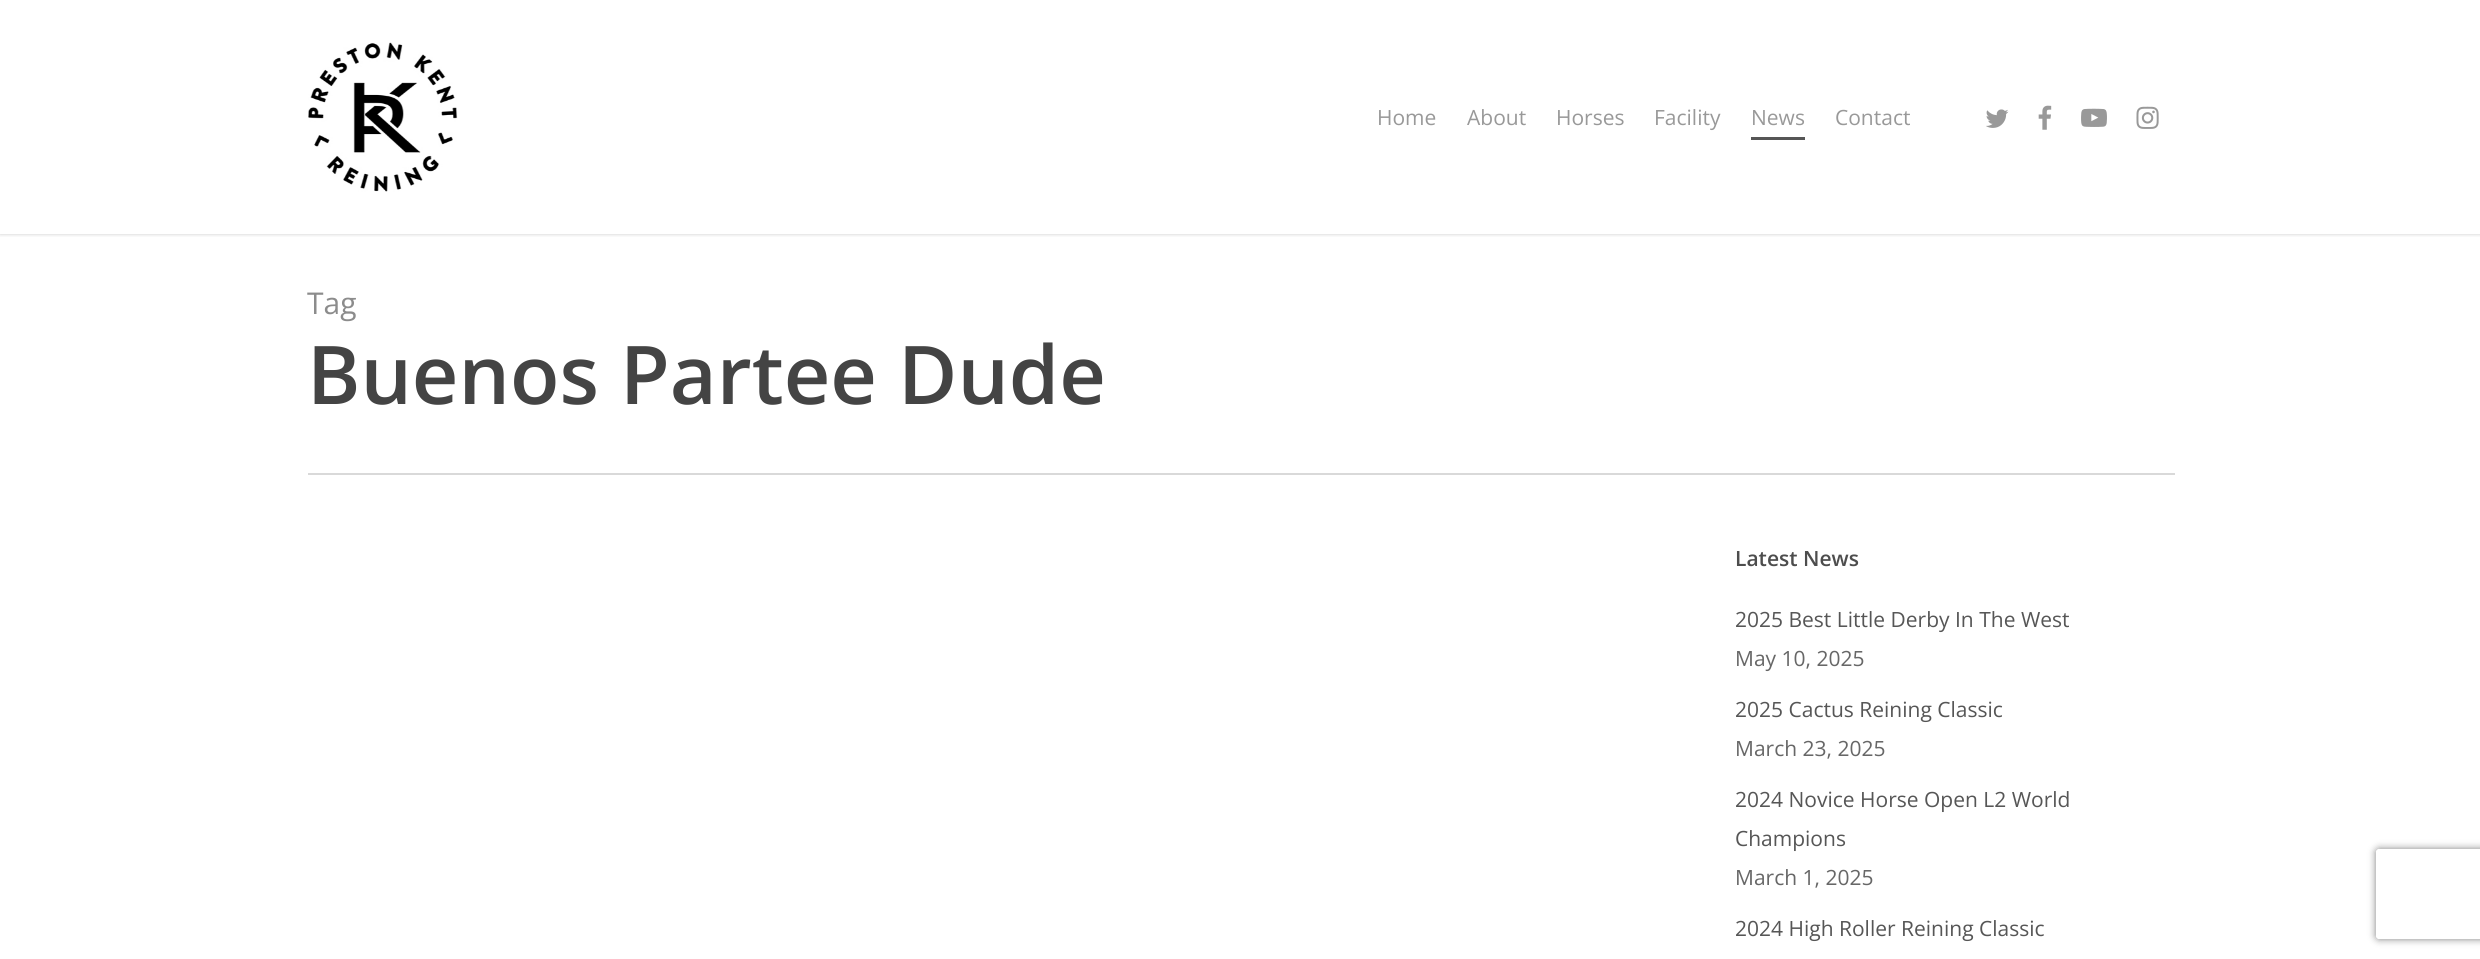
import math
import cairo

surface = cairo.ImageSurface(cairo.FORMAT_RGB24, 2480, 959)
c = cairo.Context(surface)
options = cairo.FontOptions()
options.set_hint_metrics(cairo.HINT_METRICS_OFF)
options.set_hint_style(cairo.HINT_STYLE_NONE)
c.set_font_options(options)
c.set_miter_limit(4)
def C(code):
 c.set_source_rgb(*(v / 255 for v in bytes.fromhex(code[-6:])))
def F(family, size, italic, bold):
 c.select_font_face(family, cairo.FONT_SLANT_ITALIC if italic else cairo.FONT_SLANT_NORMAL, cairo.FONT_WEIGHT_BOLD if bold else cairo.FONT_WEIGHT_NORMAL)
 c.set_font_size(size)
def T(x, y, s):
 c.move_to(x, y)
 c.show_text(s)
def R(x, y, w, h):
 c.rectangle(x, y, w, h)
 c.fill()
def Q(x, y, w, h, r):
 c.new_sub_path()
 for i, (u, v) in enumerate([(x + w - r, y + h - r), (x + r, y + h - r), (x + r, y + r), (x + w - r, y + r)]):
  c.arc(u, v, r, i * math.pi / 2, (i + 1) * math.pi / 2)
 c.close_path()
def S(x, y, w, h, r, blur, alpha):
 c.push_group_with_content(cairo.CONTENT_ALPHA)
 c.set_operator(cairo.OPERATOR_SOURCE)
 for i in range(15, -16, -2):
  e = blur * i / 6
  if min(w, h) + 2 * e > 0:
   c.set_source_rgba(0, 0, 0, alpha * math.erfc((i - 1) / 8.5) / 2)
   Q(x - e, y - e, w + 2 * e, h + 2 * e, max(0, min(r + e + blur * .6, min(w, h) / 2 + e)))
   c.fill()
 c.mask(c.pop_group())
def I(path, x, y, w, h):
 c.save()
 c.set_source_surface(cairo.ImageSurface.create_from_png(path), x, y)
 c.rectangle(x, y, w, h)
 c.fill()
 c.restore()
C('ffffff')
c.paint()
c.save()
c.rectangle(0,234,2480,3)
c.clip()
C('000000')
S(0,0,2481,234,0,2,.22)
c.restore()
I('1.png',308,42,150,150)
F('Open Sans',21,0,0)
C('999999')
T(1377,125,'Home')
T(1467,125,'About')
T(1556,125,'Horses')
T(1654,125,'Facility')
T(1751,125,'News')
C('565656')
R(1751,137,54,3)
C('999999')
T(1835,125,'Contact')
I('2.png',1986,109,23,19)
I('3.png',2038,105,14,25)
I('4.png',2081,108,26,19)
I('5.png',2136,106,23,23)
C('d9d9d9')
R(308,473,1867,2)
F('Open Sans',30,0,0)
C('8c8c8c')
T(307,314,'Tag')
F('Open Sans SemiBold',81,0,0)
C('444444')
T(307,404,'Buenos Partee Dude')
F('Open Sans SemiBold',21,0,0)
C('4d4d4d')
T(1735,566,'Latest News')
F('Open Sans',21,0,0)
C('565656')
T(1735,627,'2025 Best Little Derby In The West')
C('676767')
T(1735,666,'May 10, 2025')
C('565656')
T(1735,717,'2025 Cactus Reining Classic')
C('676767')
T(1735,756,'March 23, 2025')
C('565656')
T(1735,807,'2024 Novice Horse Open L2 World')
T(1735,846,'Champions')
C('676767')
T(1735,885,'March 1, 2025')
C('565656')
T(1735,936,'2024 High Roller Reining Classic')
c.save()
c.set_fill_rule(cairo.FILL_RULE_EVEN_ODD)
c.new_path()
c.move_to(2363,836)
c.line_to(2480,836)
c.line_to(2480,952)
c.line_to(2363,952)
c.close_path()
c.move_to(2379,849)
c.line_to(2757,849)
c.curve_to(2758.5,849,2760,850.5,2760,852)
c.line_to(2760,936)
c.curve_to(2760,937.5,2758.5,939,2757,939)
c.line_to(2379,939)
c.curve_to(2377.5,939,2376,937.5,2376,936)
c.line_to(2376,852)
c.curve_to(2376,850.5,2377.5,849,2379,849)
c.close_path()
c.clip()
C('808080')
S(2376,849,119,90,3,4,1)
c.restore()
surface.write_to_png('o.png')
